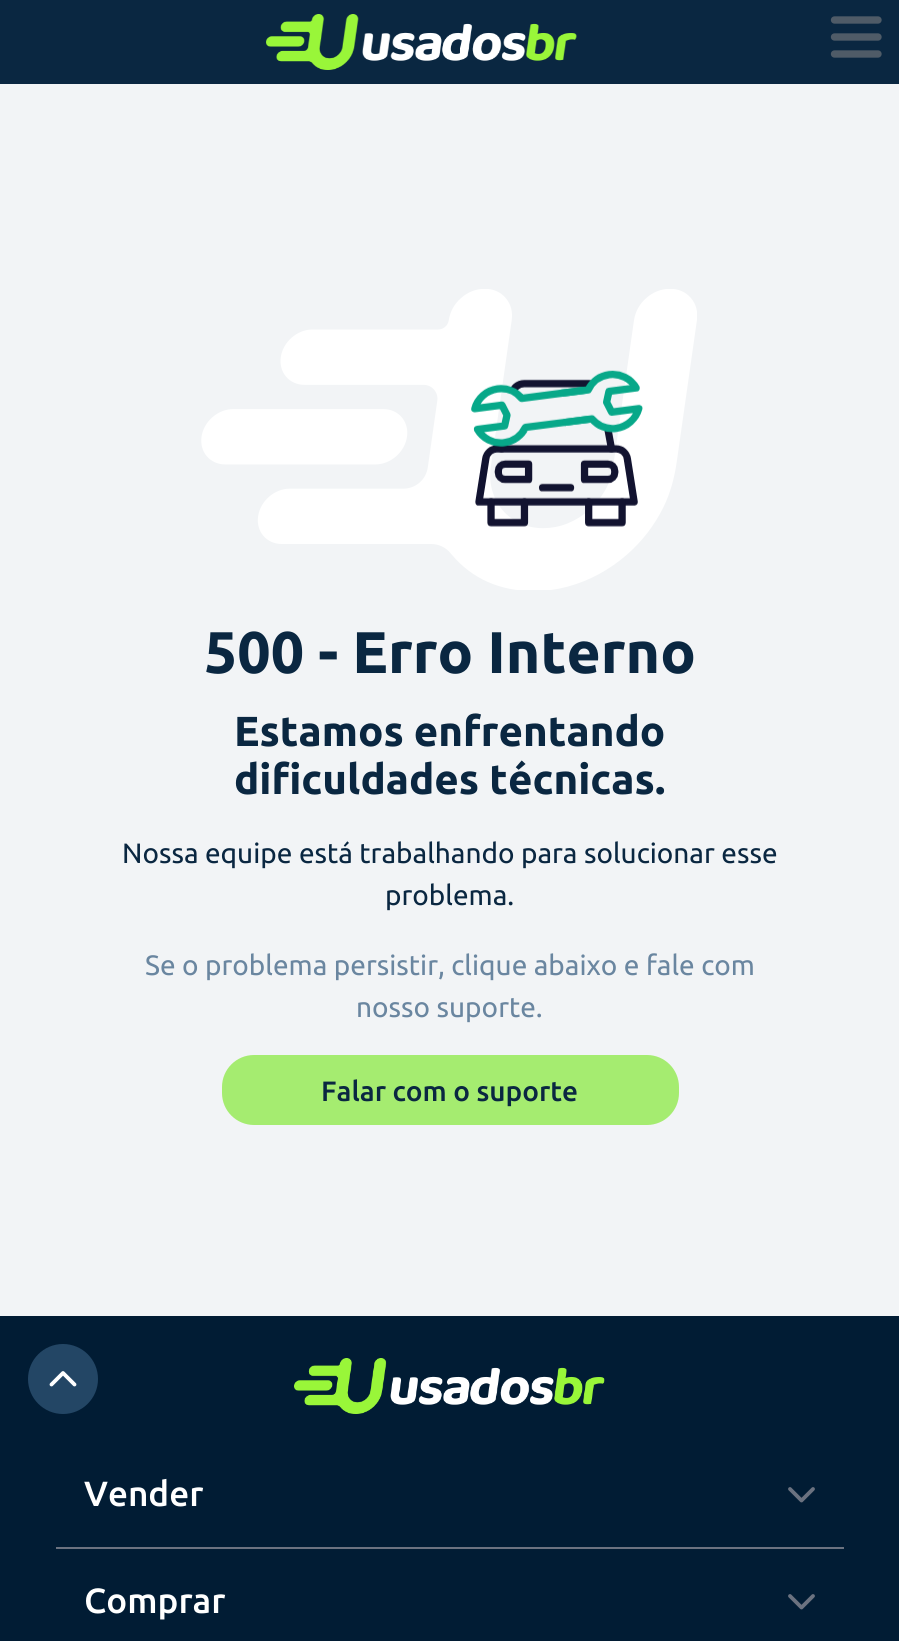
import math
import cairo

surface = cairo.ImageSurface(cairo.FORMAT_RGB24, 899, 1641)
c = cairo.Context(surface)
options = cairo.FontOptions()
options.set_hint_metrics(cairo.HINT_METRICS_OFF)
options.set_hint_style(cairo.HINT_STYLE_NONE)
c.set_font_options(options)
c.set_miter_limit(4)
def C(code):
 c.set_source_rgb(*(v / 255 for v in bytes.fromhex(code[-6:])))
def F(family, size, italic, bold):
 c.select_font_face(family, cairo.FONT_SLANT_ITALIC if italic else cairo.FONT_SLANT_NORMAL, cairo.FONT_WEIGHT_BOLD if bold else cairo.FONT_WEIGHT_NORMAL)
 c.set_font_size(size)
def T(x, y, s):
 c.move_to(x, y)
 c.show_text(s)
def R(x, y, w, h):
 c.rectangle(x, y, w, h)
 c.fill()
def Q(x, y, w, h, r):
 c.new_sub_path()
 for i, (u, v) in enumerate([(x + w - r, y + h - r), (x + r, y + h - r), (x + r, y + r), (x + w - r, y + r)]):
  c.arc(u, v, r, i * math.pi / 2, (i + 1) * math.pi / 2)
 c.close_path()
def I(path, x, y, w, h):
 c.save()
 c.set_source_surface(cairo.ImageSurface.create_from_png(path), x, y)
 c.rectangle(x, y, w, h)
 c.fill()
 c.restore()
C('f2f4f6')
c.paint()
C('0a2741')
R(0,0,899,84)
I('1.png',266,14,311,56)
c.new_path()
c.move_to(834.5,20)
c.line_to(878,20)
c.move_to(834.5,37)
c.line_to(878,37)
c.move_to(834.5,54)
c.line_to(878,54)
C('4f5b67')
c.set_line_width(7.3)
c.set_line_cap(cairo.LINE_CAP_ROUND)
c.stroke()
I('2.png',201,289,496,301)
I('3.png',471,370,172,157)
F('Ubuntu',58.75,0,1)
C('0a2741')
T(204,673,'500 - Erro Interno')
F('Ubuntu',42,0,1)
T(234,746,'Estamos enfrentando')
T(234,794,'dificuldades técnicas.')
F('Ubuntu',28,0,0)
T(122,863,'Nossa equipe está trabalhando para solucionar esse')
T(385,905,'problema.')
C('6a86a0')
T(145,975,'Se o problema persistir, clique abaixo e fale com')
T(356,1017,'nosso suporte.')
C('a5ec70')
Q(222,1055,457,70,32)
c.fill()
F('Ubuntu Medium',28,0,0)
C('0a2741')
T(321,1101,'Falar com o suporte')
C('011c34')
R(0,1316,899,325)
C('234665')
c.new_path()
c.arc(63,1379,35,0,2 * math.pi)
c.fill()
c.new_path()
c.move_to(74.5,1384.5)
c.line_to(63,1373)
c.line_to(51.5,1384.5)
C('ffffff')
c.set_line_width(3.8)
c.set_line_join(cairo.LINE_JOIN_ROUND)
c.stroke()
I('4.png',294,1358,311,56)
C('6b7280')
R(56,1547,788,2)
F('Ubuntu Medium',35,0,0)
C('ffffff')
T(84,1506,'Vender')
c.new_path()
c.move_to(790,1489)
c.line_to(801.5,1500.5)
c.line_to(813,1489)
C('6b7280')
c.stroke()
C('ffffff')
T(84,1613,'Comprar')
c.new_path()
c.move_to(790,1596)
c.line_to(801.5,1607.5)
c.line_to(813,1596)
C('6b7280')
c.stroke()
surface.write_to_png('o.png')
